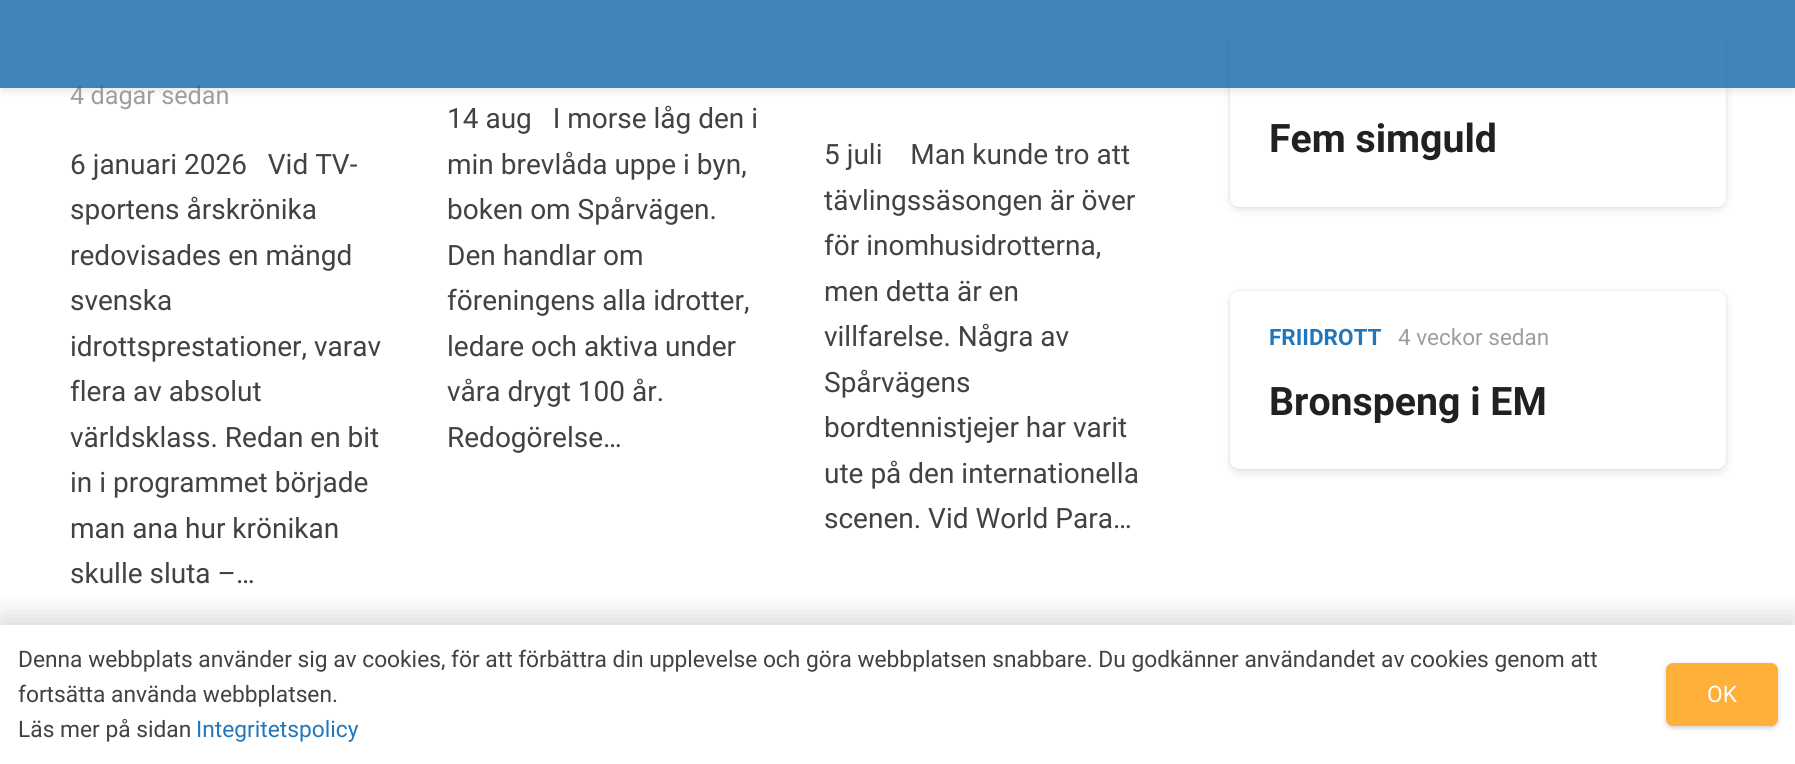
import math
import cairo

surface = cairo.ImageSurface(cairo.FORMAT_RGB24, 1795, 764)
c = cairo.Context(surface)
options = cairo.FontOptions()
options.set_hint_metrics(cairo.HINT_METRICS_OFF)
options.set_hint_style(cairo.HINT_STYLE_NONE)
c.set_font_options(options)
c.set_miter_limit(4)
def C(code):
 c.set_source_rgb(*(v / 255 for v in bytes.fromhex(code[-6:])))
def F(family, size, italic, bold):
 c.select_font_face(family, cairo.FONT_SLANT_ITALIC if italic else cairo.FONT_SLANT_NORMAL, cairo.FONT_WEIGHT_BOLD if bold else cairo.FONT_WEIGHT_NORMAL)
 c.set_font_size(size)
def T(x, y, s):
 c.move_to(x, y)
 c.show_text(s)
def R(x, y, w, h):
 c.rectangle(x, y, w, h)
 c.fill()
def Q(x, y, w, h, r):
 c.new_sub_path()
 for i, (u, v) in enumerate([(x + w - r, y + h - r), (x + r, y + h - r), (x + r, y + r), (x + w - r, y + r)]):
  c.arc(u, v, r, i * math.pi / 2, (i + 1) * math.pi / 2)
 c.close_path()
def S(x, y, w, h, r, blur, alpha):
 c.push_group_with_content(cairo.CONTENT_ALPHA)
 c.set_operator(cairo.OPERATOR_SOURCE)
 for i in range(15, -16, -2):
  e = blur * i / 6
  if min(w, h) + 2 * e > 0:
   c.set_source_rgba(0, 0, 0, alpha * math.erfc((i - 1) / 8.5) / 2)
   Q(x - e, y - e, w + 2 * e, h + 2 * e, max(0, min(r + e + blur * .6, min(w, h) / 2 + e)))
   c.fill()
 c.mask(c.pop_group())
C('ffffff')
c.paint()
C('000000')
S(1230,32,496,178,9,4,.1)
S(1230,28,496,179,9,1,.1)
C('ffffff')
Q(1230,28,496,179,9)
c.fill()
c.save()
c.set_fill_rule(cairo.FILL_RULE_EVEN_ODD)
c.new_path()
c.move_to(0,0)
c.line_to(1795,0)
c.line_to(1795,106)
c.line_to(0,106)
c.close_path()
c.move_to(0,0)
c.line_to(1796,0)
c.line_to(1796,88)
c.line_to(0,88)
c.close_path()
c.clip()
C('000000')
S(2,7,1792,84,0,4.5,.1)
c.restore()
F('Roboto',25.25,0,0)
C('9e9e9e')
T(70,104,'4 dagar sedan')
c.set_source_rgba(0.067,0.4,0.667,0.8)
R(0,0,1795,88)
F('Roboto',28,0,0)
C('424242')
T(70,174,'6 januari 2026   Vid TV-')
T(70,219,'sportens årskrönika')
T(70,265,'redovisades en mängd')
T(70,310,'svenska')
T(70,356,'idrottsprestationer, varav')
T(70,401,'flera av absolut')
T(70,447,'världsklass. Redan en bit')
T(70,492,'in i programmet började')
T(70,538,'man ana hur krönikan')
T(70,583,'skulle sluta –…')
T(447,128,'14 aug   I morse låg den i')
T(447,174,'min brevlåda uppe i byn,')
T(447,219,'boken om Spårvägen.')
T(447,265,'Den handlar om')
T(447,310,'föreningens alla idrotter,')
T(447,356,'ledare och aktiva under')
T(447,401,'våra drygt 100 år.')
T(447,447,'Redogörelse…')
T(824,164,'5 juli    Man kunde tro att')
T(824,210,'tävlingssäsongen är över')
T(824,255,'för inomhusidrotterna,')
T(824,301,'men detta är en')
T(824,346,'villfarelse. Några av')
T(824,392,'Spårvägens')
T(824,437,'bordtennistjejer har varit')
T(824,483,'ute på den internationella')
T(824,528,'scenen. Vid World Para…')
F('Roboto',39.25,0,1)
C('212121')
T(1269,152,'Fem simguld')
C('000000')
S(1230,294,496,179,9,4,.1)
S(1230,291,496,178,9,1,.1)
C('ffffff')
Q(1230,291,496,178,9)
c.fill()
F('Roboto',22.5,0,1)
C('2277bb')
T(1269,345,'FRIIDROTT')
F('Roboto',22.5,0,0)
C('9e9e9e')
T(1398,345,'4 veckor sedan')
F('Roboto',39.25,0,1)
C('212121')
T(1269,415,'Bronspeng i EM')
C('000000')
S(0,616,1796,140,0,13,.15)
C('ffffff')
R(0,625,1795,139)
F('Roboto',22.75,0,0)
C('424242')
T(18,667,'Denna webbplats använder sig av cookies, för att förbättra din upplevelse och göra webbplatsen snabbare. Du godkänner användandet av cookies genom att')
T(18,702,'fortsätta använda webbplatsen.')
T(18,737,'Läs mer på sidan')
C('2277bb')
T(196,737,'Integritetspolicy')
C('000000')
S(1666,665,112,63,7,2.5,.2)
C('ffb03a')
Q(1666,663,112,63,7)
c.fill()
C('ffffff')
T(1707,702,'OK')
surface.write_to_png('o.png')
